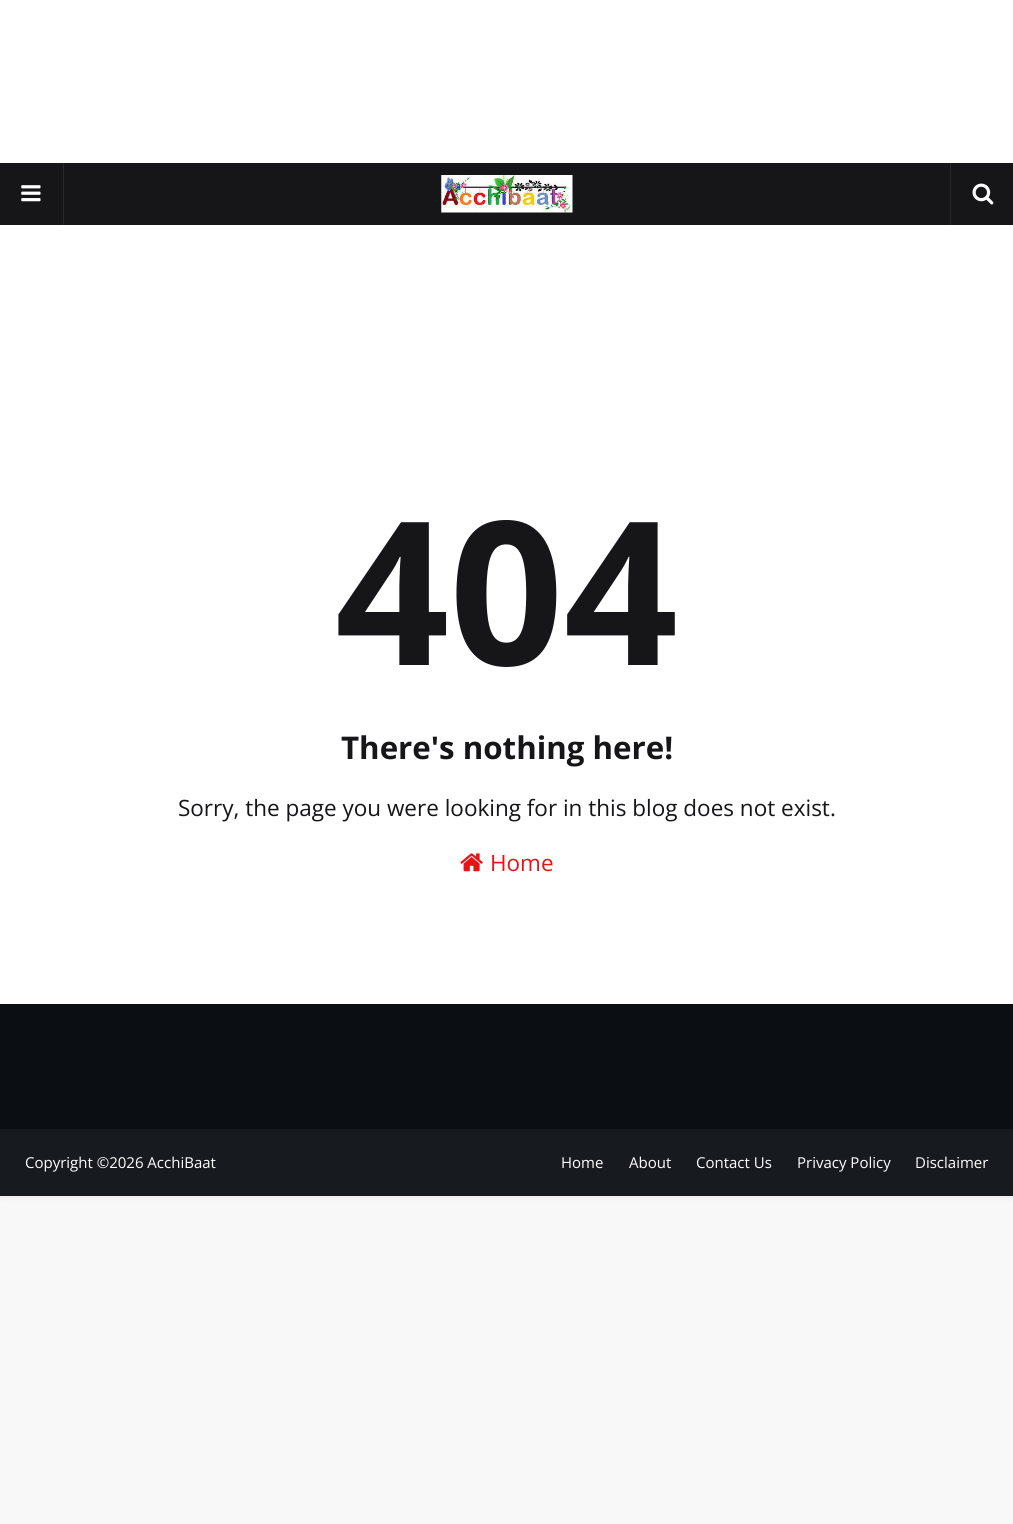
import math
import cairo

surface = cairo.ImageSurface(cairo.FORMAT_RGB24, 1013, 1524)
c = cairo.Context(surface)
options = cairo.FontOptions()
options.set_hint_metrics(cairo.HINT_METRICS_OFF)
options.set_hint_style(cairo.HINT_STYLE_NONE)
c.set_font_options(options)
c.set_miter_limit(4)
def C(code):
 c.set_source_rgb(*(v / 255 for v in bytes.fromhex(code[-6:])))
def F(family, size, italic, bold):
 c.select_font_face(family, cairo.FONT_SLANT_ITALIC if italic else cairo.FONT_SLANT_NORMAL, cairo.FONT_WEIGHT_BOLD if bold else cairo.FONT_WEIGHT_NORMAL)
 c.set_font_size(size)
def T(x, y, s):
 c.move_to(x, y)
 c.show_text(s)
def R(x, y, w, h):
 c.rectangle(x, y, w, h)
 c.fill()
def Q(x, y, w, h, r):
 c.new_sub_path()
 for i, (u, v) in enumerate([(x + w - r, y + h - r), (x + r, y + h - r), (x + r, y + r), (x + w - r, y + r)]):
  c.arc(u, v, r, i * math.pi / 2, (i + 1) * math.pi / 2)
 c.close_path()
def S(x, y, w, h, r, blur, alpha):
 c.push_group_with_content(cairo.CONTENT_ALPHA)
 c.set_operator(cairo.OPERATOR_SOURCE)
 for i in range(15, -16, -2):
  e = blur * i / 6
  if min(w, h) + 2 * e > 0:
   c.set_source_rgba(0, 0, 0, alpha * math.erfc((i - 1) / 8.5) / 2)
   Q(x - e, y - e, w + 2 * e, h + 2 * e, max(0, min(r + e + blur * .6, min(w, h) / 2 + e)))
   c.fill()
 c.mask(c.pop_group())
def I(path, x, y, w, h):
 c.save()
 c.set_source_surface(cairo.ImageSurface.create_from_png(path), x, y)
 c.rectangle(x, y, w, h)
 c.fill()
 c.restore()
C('f8f8f8')
c.paint()
C('000000')
S(0,0,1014,1196,0,3,.1)
C('ffffff')
R(0,0,1013,1004)
C('161619')
R(0,163,1013,62)
C('29292b')
R(63,163,1,62)
I('1.png',21,185,20,17)
I('2.png',441,175,132,38)
R(950,163,1,62)
I('3.png',972,183,22,22)
F('Open Sans',200,0,1)
C('161619')
T(335,665,'404')
F('Open Sans',31.25,0,1)
T(341,759,'There\'s nothing here!')
F('Open Sans',22.5,0,0)
T(178,816,'Sorry, the page you were looking for in this blog does not exist.')
I('4.png',460,853,23,19)
C('e51515')
T(490,871,'Home')
C('0b0e13')
R(0,1004,1013,125)
C('171a1f')
R(0,1129,1013,67)
F('Open Sans',15,0,0)
C('ffffff')
T(25,1168,'Copyright ©2026 AcchiBaat')
T(561,1168,'Home')
T(629,1168,'About')
T(696,1168,'Contact Us')
T(797,1168,'Privacy Policy')
T(915,1168,'Disclaimer')
surface.write_to_png('o.png')
